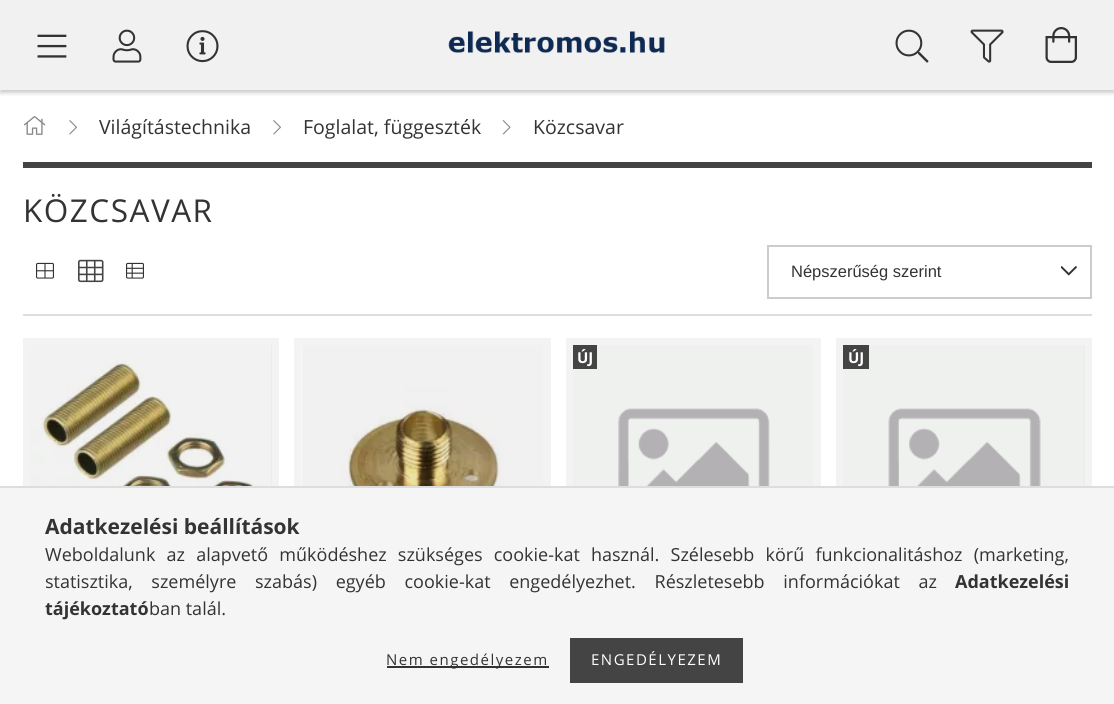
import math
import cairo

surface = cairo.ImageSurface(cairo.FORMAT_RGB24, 1114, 704)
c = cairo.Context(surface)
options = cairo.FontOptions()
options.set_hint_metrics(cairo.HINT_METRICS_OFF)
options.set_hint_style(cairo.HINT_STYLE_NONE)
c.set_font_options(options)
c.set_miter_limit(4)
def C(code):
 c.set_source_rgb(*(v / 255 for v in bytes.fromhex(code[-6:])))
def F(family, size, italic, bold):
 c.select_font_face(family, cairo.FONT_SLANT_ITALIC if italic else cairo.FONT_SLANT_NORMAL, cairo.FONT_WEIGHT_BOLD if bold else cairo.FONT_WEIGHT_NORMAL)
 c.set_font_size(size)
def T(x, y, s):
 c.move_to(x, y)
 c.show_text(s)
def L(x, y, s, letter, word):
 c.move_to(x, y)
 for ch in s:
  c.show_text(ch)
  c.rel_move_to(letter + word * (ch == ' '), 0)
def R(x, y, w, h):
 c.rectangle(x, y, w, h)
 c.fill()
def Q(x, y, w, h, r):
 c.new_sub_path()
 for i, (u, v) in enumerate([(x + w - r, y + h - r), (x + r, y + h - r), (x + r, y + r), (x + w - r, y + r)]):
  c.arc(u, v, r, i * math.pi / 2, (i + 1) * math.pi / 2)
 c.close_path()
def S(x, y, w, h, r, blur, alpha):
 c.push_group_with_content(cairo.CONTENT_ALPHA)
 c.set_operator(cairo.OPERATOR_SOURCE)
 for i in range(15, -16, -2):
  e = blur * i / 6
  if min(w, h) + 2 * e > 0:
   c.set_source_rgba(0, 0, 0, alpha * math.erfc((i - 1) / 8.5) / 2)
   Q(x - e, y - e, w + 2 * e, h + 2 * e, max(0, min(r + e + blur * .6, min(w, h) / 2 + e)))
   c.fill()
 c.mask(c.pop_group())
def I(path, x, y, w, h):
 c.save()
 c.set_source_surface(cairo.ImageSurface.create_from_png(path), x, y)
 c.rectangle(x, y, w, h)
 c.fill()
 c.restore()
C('ffffff')
c.paint()
C('000000')
S(0,3,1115,90,0,2,.2)
C('f1f1f1')
R(0,0,1114,90)
I('1.png',37,34,30,24)
I('2.png',112,29,30,34)
I('3.png',186,30,33,33)
I('4.png',448,31,217,22)
I('5.png',895,29,34,34)
I('6.png',970,29,34,34)
I('7.png',1045,27,32,36)
I('8.png',23,116,23,19)
I('9.png',69,120,8,15)
F('Open Sans',19.5,0,0)
C('333333')
T(99,134,'Világítástechnika')
I('9.png',273,120,8,15)
T(303,134,'Foglalat, függeszték')
I('10.png',502,120,9,15)
T(533,134,'Közcsavar')
C('444444')
R(23,162,1069,6)
F('Open Sans',31.5,0,0)
C('333333')
L(23,222,'KÖZCSAVAR',1.5,0)
C('dddddd')
R(23,314,1069,2)
I('11.png',36,262,18,17)
I('12.png',78,259,26,24)
I('13.png',126,262,18,17)
I('14.png',1061,266,16,10)
c.rectangle(768,246,323,52)
C('cccccc')
c.stroke()
F('Liberation Sans',16.5,0,0)
C('333333')
T(791,277,'Népszerűség szerint')
C('f3f3f3')
R(23,338,256,148)
C('e7e7e7')
R(271,345,1,141)
I('15.png',30,345,242,141)
C('f3f3f3')
R(294,338,257,148)
I('16.png',301,345,242,141)
R(566,338,255,148)
I('17.png',573,345,240,141)
C('444444')
R(573,345,24,24)
F('Open Sans',15,0,1)
C('ffffff')
T(577,363,'ÚJ')
C('f3f3f3')
R(836,338,256,148)
C('e7e7e7')
R(1084,345,1,141)
I('18.png',843,345,242,141)
C('444444')
R(843,345,26,24)
C('ffffff')
T(848,363,'ÚJ')
C('f5f5f5')
R(0,488,1114,216)
C('dddddd')
R(0,486,1114,2)
F('Open Sans',21,0,1)
C('333333')
T(45,534,'Adatkezelési beállítások')
F('Open Sans',18,0,0)
L(45,561,'Weboldalunk az alapvető működéshez szükséges cookie-kat használ. Szélesebb körű funkcionalitáshoz (marketing,',0,6.5)
L(45,588,'statisztika, személyre szabás) egyéb cookie-kat engedélyezhet. Részletesebb információkat az',0,14)
F('Open Sans',18,0,1)
T(955,588,'Adatkezelési')
T(45,615,'tájékoztató')
F('Open Sans',18,0,0)
T(149,615,'ban talál.')
R(387,666,162,2)
F('Open Sans',15,0,0)
L(386,665,'Nem engedélyezem',1.5,0)
C('444444')
R(570,638,173,45)
C('ffffff')
L(591,665,'ENGEDÉLYEZEM',1.5,0)
surface.write_to_png('o.png')
